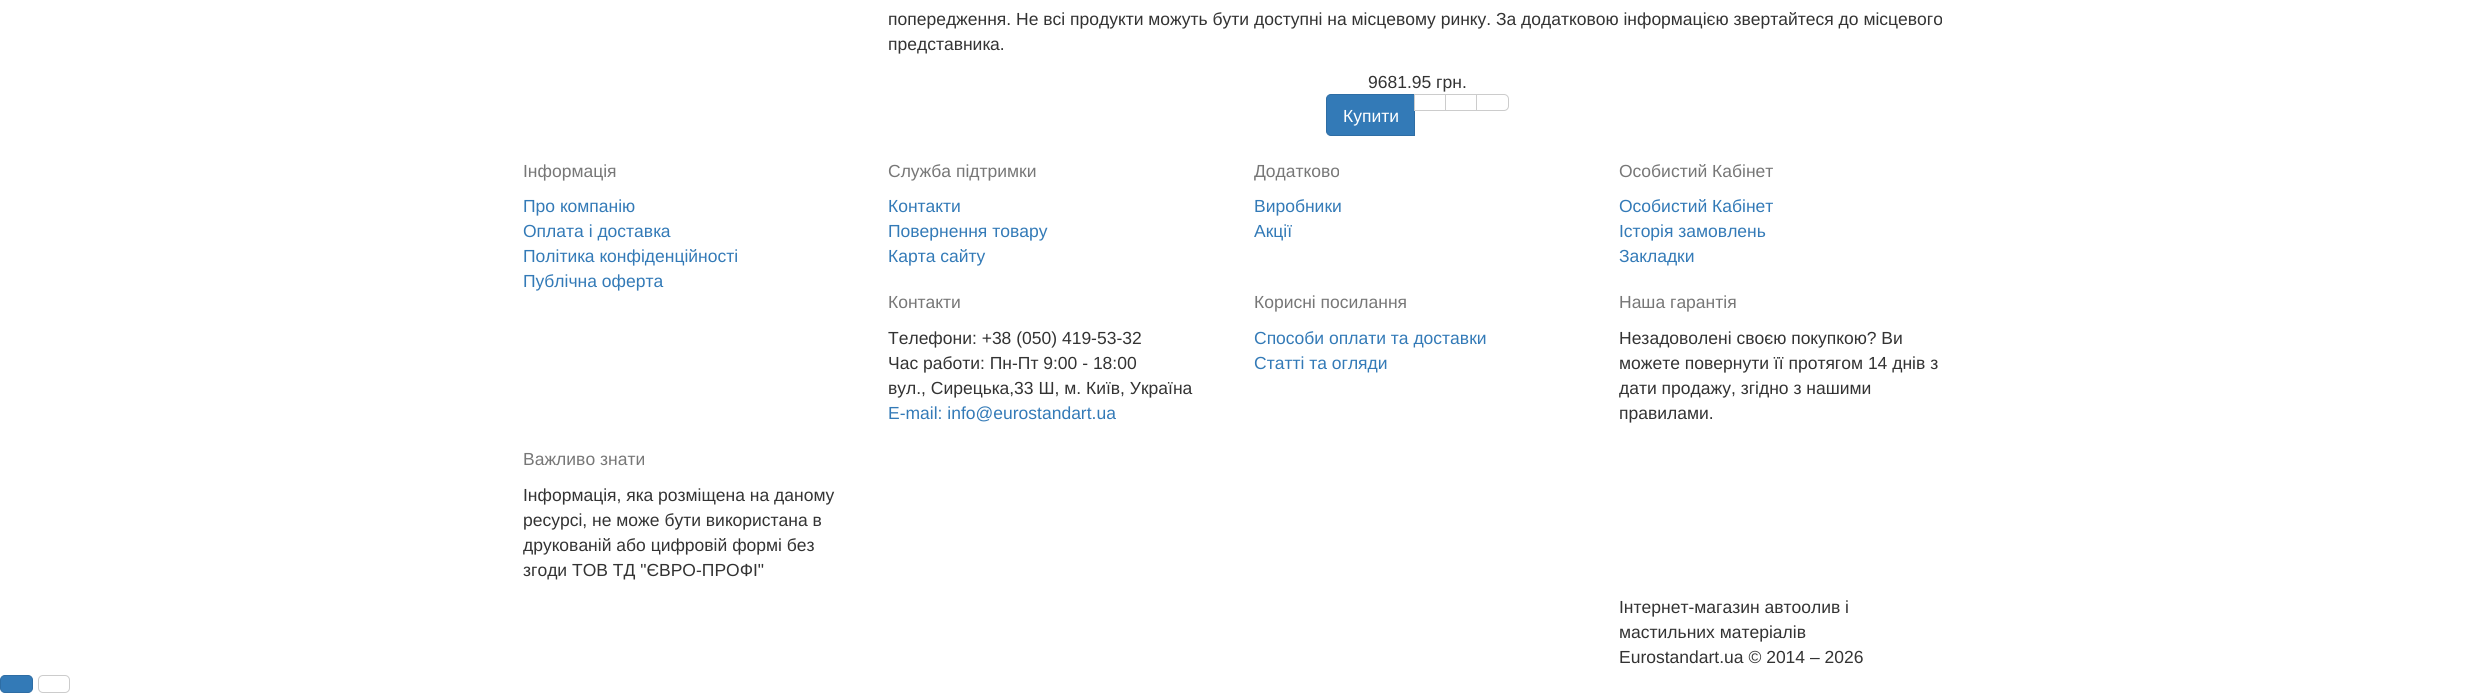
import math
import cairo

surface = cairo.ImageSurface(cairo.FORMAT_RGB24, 2470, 694)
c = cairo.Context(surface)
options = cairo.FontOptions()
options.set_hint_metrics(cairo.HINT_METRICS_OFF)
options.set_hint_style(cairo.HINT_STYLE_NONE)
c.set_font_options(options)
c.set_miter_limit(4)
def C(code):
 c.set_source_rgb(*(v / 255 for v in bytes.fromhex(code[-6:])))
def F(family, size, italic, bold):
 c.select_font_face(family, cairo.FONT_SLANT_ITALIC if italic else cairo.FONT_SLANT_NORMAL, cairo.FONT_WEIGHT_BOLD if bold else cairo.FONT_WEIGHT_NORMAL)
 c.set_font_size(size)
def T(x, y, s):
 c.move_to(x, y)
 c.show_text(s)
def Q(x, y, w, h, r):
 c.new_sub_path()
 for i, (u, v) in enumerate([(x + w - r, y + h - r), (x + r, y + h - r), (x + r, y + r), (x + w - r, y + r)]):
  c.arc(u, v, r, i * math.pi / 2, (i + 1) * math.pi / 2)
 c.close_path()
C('ffffff')
c.paint()
F('Liberation Sans',17.5,0,0)
C('333333')
T(888,25,'попередження. Не всі продукти можуть бути доступні на місцевому ринку. За додатковою інформацією звертайтеся до місцевого')
T(888,50,'представника.')
T(1368,88,'9681.95 грн.')
C('337ab7')
c.new_path()
c.move_to(1331,94.5)
c.line_to(1414.5,94.5)
c.line_to(1414.5,135.5)
c.line_to(1331,135.5)
c.curve_to(1328.5,135.5,1326.5,133.5,1326.5,131)
c.line_to(1326.5,99)
c.curve_to(1326.5,96.5,1328.5,94.5,1331,94.5)
c.close_path()
c.fill_preserve()
C('2e6da4')
c.set_line_width(1)
c.stroke()
c.rectangle(1414.5,94.5,31,16)
C('cccccc')
c.stroke()
c.rectangle(1445.5,94.5,32,16)
c.stroke()
C('ffffff')
c.new_path()
c.move_to(1476.5,94.5)
c.line_to(1504,94.5)
c.curve_to(1506.5,94.5,1508.5,96.5,1508.5,99)
c.line_to(1508.5,106)
c.curve_to(1508.5,108.5,1506.5,110.5,1504,110.5)
c.line_to(1476.5,110.5)
c.close_path()
c.fill_preserve()
C('cccccc')
c.stroke()
C('ffffff')
T(1343,122,'Купити')
C('777777')
T(523,177,'Інформація')
C('337ab7')
T(523,212,'Про компанію')
T(523,237,'Оплата і доставка')
T(523,262,'Політика конфіденційності')
T(523,287,'Публічна оферта')
C('777777')
T(888,177,'Служба підтримки')
C('337ab7')
T(888,212,'Контакти')
T(888,237,'Повернення товару')
T(888,262,'Карта сайту')
C('777777')
T(1254,177,'Додатково')
C('337ab7')
T(1254,212,'Виробники')
T(1254,237,'Акції')
C('777777')
T(1619,177,'Особистий Кабінет')
C('337ab7')
T(1619,212,'Особистий Кабінет')
T(1619,237,'Історія замовлень')
T(1619,262,'Закладки')
C('777777')
T(888,308,'Контакти')
C('333333')
T(888,344,'Телефони: +38 (050) 419-53-32')
T(888,369,'Час работи: Пн-Пт 9:00 - 18:00')
T(888,394,'вул., Сирецька,33 Ш, м. Київ, Україна')
C('337ab7')
T(888,419,'E-mail: info@eurostandart.ua')
C('777777')
T(1254,308,'Корисні посилання')
C('337ab7')
T(1254,344,'Способи оплати та доставки')
T(1254,369,'Статті та огляди')
C('777777')
T(1619,308,'Наша гарантія')
C('333333')
T(1619,344,'Незадоволені своєю покупкою? Ви')
T(1619,369,'можете повернути її протягом 14 днів з')
T(1619,394,'дати продажу, згідно з нашими')
T(1619,419,'правилами.')
C('777777')
T(523,465,'Важливо знати')
C('333333')
T(523,501,'Інформація, яка розміщена на даному')
T(523,526,'ресурсі, не може бути використана в')
T(523,551,'друкованій або цифровій формі без')
T(523,576,'згоди ТОВ ТД "ЄВРО-ПРОФІ"')
T(1619,613,'Інтернет-магазин автоолив і')
T(1619,638,'мастильних матеріалів')
T(1619,663,'Eurostandart.ua © 2014 – 2026')
C('337ab7')
Q(.5,675.5,32,17,4.5)
c.fill_preserve()
C('2e6da4')
c.stroke()
Q(38.5,675.5,31,17,4.5)
C('cccccc')
c.stroke()
surface.write_to_png('o.png')
